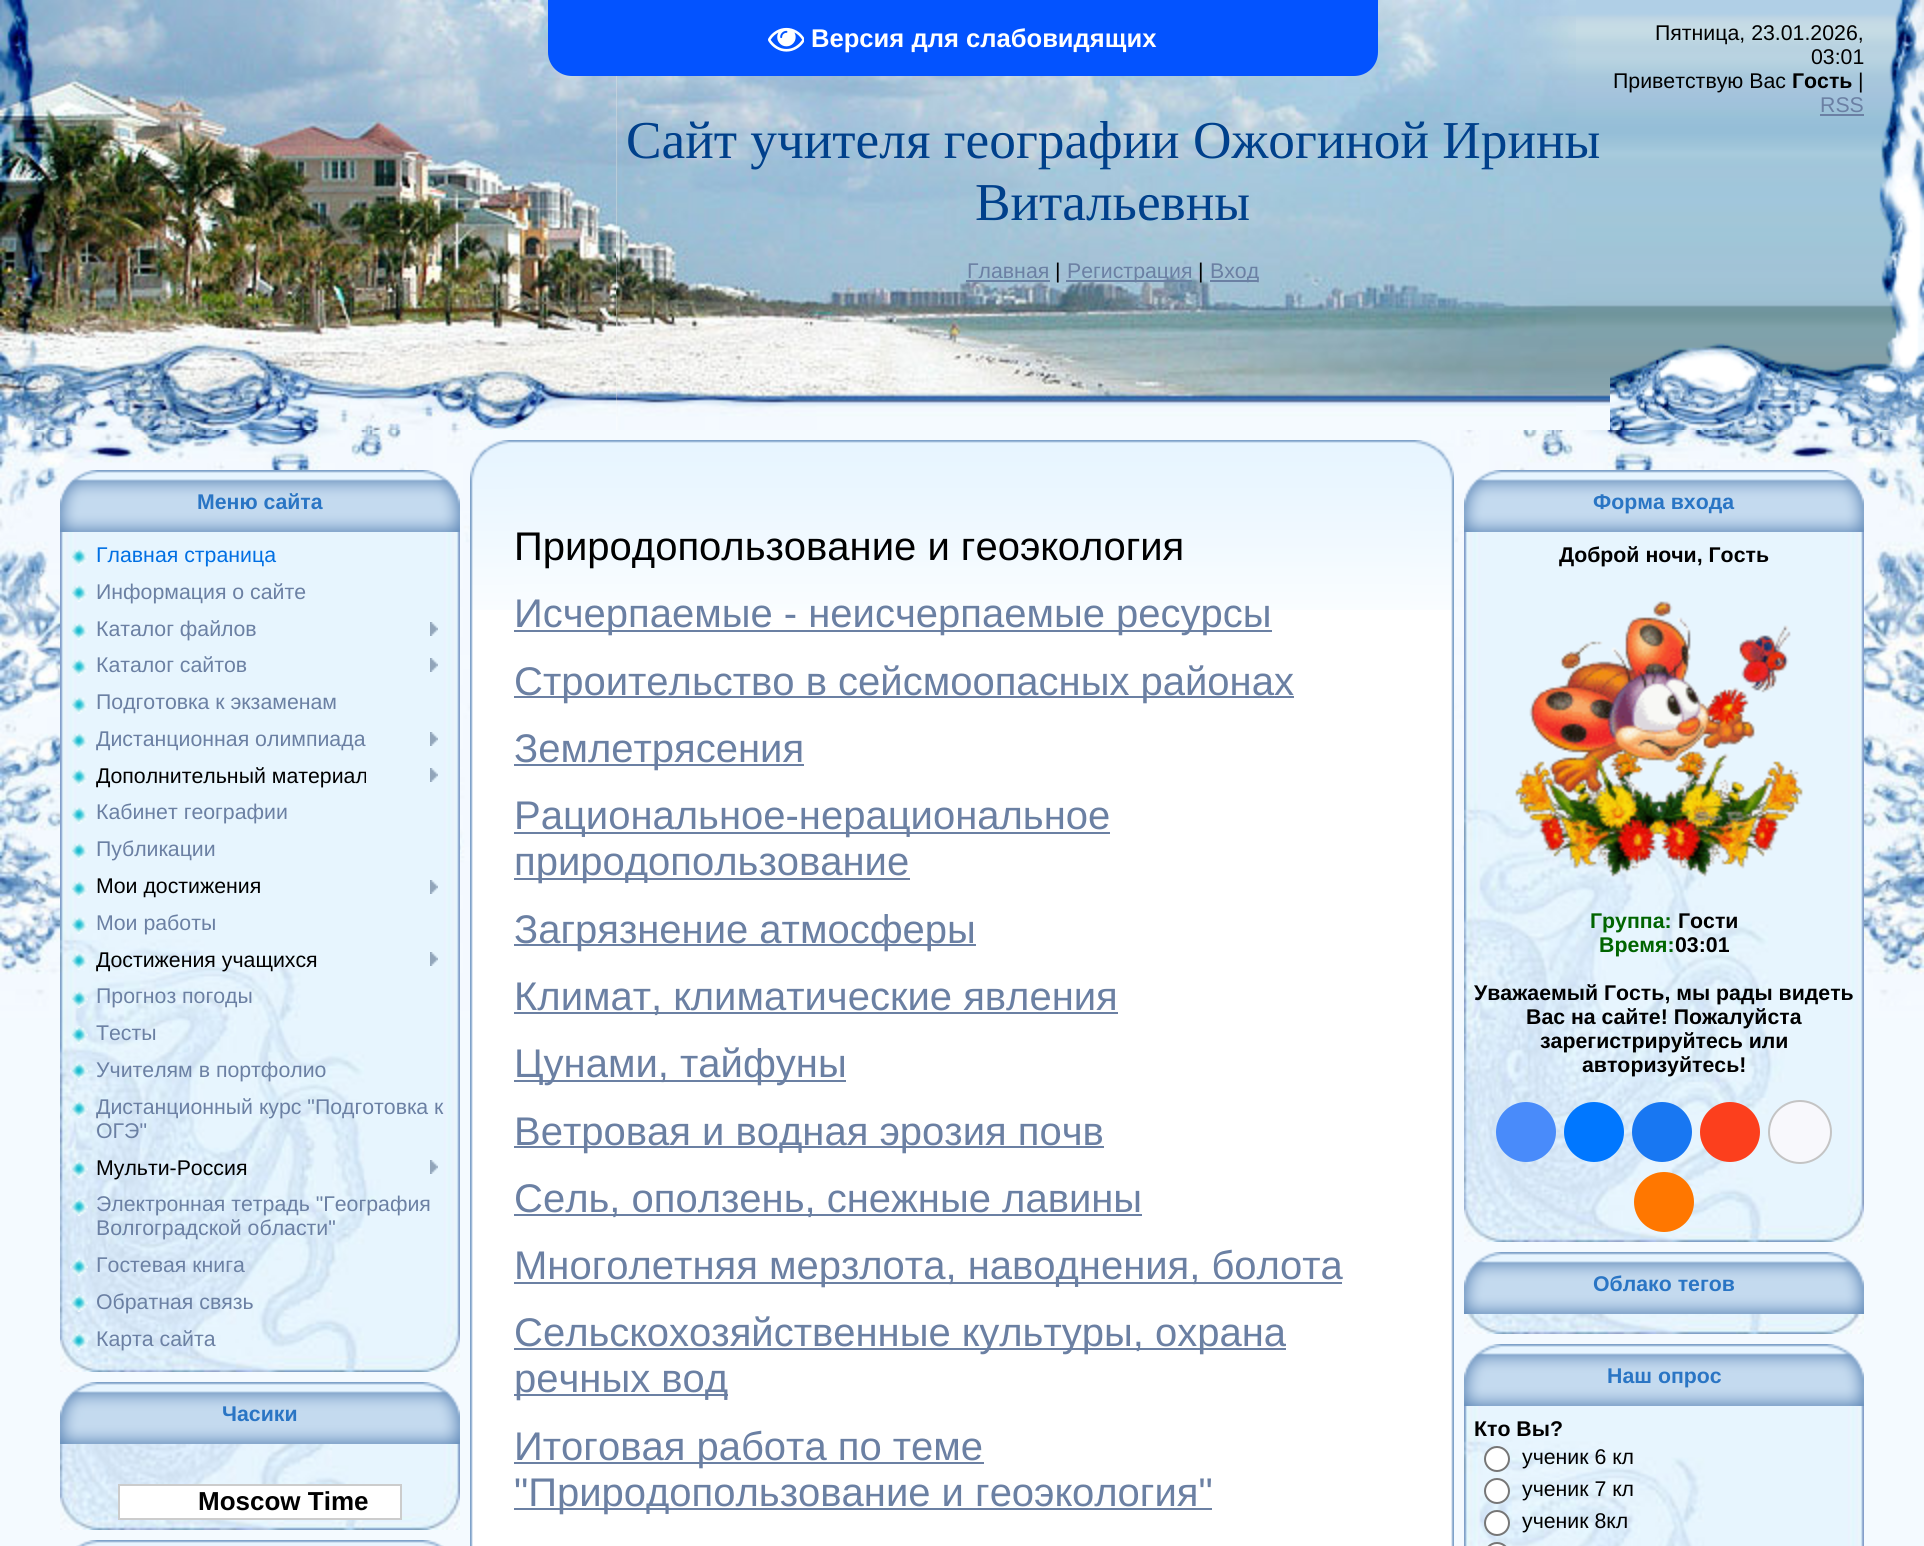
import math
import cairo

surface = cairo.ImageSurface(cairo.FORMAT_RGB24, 1924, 1546)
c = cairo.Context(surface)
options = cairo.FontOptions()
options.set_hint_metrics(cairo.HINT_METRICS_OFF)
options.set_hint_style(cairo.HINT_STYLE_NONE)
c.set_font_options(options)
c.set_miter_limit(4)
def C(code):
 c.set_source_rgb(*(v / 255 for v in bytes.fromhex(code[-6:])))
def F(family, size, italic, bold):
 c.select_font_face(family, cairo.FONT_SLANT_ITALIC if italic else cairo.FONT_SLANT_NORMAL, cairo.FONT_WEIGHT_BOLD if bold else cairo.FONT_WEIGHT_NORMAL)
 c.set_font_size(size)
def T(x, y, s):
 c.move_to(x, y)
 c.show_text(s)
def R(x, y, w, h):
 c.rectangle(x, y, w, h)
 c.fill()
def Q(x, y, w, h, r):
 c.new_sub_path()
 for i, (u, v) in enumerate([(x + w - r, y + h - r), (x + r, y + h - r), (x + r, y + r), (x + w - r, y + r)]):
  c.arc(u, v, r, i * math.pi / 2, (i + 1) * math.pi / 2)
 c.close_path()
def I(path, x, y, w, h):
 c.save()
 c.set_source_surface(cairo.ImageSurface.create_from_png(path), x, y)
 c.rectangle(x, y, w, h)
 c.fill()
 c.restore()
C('f4faff')
c.paint()
I('1.png',1576,0,325,406)
I('2.png',616,0,960,430)
I('3.png',0,0,616,430)
I('4.png',1610,0,314,430)
F('Liberation Sans',21.3,0,0)
C('000000')
T(1655,40,'Пятница, 23.01.2026,')
T(1811,64,'03:01')
T(1613,88,'Приветствую Вас')
F('Liberation Sans',21.3,0,1)
T(1792,88,'Гость')
F('Liberation Sans',21.3,0,0)
T(1858,88,'|')
C('6b80a3')
T(1820,112,'RSS')
R(1820,114,44,2)
F('Liberation Serif',53.3,0,0)
C('00408b')
T(626,158,'Сайт учителя географии Ожогиной Ирины')
T(975,220,'Витальевны')
F('Liberation Sans',21.3,0,0)
C('6b80a3')
T(967,278,'Главная')
R(966,280,84,2)
C('000000')
T(1055,278,'|')
C('6b80a3')
R(1066,280,126,2)
T(1067,278,'Регистрация')
C('000000')
T(1198,278,'|')
C('6b80a3')
R(1210,280,48,2)
T(1210,278,'Вход')
I('5.png',1431,430,493,588)
I('6.png',0,430,493,588)
I('7.png',60,470,400,62)
F('Liberation Sans',21.3,0,1)
C('2a75c4')
T(197,509,'Меню сайта')
I('8.png',60,532,400,840)
I('9.png',70,549,18,17)
F('Liberation Sans',21.3,0,0)
C('006fe3')
T(96,562,'Главная страница')
I('9.png',70,585,18,17)
C('6b80a3')
T(96,599,'Информация о сайте')
I('9.png',70,623,18,17)
T(96,636,'Каталог файлов')
I('10.png',430,622,8,14)
I('9.png',70,659,18,17)
T(96,672,'Каталог сайтов')
I('10.png',430,658,8,14)
I('9.png',70,697,18,17)
T(96,709,'Подготовка к экзаменам')
I('9.png',70,733,18,17)
T(96,746,'Дистанционная олимпиада')
I('10.png',430,732,8,14)
I('9.png',70,769,18,17)
C('000000')
T(96,783,'Дополнительный материал')
I('10.png',430,768,8,14)
I('9.png',70,807,18,17)
C('6b80a3')
T(96,819,'Кабинет географии')
I('9.png',70,843,18,17)
T(96,856,'Публикации')
I('9.png',70,881,18,17)
C('000000')
T(96,893,'Мои достижения')
I('10.png',430,880,8,14)
I('11.png',70,917,18,17)
C('6b80a3')
T(96,930,'Мои работы')
I('12.png',70,953,18,17)
C('000000')
T(96,967,'Достижения учащихся')
I('10.png',430,952,8,14)
I('13.png',70,991,18,17)
C('6b80a3')
T(96,1003,'Прогноз погоды')
I('14.png',70,1026,18,18)
T(96,1040,'Тесты')
I('15.png',70,1062,18,18)
T(96,1077,'Учителям в портфолио')
I('16.png',70,1100,18,18)
T(96,1114,'Дистанционный курс "Подготовка к')
T(96,1138,'ОГЭ"')
I('17.png',70,1160,18,18)
C('000000')
T(96,1175,'Мульти-Россия')
I('10.png',430,1160,8,14)
I('18.png',70,1198,18,18)
C('6b80a3')
T(96,1211,'Электронная тетрадь "География')
T(96,1235,'Волгоградской области"')
I('19.png',70,1258,18,18)
T(96,1272,'Гостевая книга')
I('20.png',70,1294,18,18)
T(96,1309,'Обратная связь')
I('21.png',70,1332,18,18)
T(96,1346,'Карта сайта')
I('22.png',60,1382,400,62)
F('Liberation Sans',21.3,0,1)
C('2a75c4')
T(222,1421,'Часики')
I('23.png',60,1444,400,86)
C('ffffff')
c.rectangle(119,1485,282,34)
c.fill_preserve()
C('cccccc')
c.stroke()
F('Liberation Sans',26,0,1)
C('000000')
T(198,1510,'Moscow Time')
I('24.png',76,1540,368,6)
I('25.png',470,440,44,44)
I('26.png',514,440,896,44)
I('27.png',1410,440,44,44)
I('28.png',470,484,44,1062)
I('29.png',471,484,43,126)
C('ffffff')
R(514,610,896,936)
I('30.png',514,484,896,126)
F('Liberation Sans',40,0,0)
C('000000')
T(514,560,'Природопользование и геоэкология')
C('6b80a3')
R(514,630,758,2)
T(514,627,'Исчерпаемые - неисчерпаемые ресурсы')
R(514,696,780,2)
T(514,695,'Строительство в сейсмоопасных районах')
R(514,764,290,2)
T(514,762,'Землетрясения')
R(514,832,596,2)
T(514,829,'Рациональное-нерациональное')
R(514,878,396,2)
T(514,875,'природопользование')
R(514,944,462,2)
T(514,943,'Загрязнение атмосферы')
R(514,1012,604,2)
T(514,1010,'Климат, климатические явления')
R(514,1080,332,2)
T(514,1077,'Цунами, тайфуны')
R(514,1146,590,2)
T(514,1145,'Ветровая и водная эрозия почв')
R(514,1214,628,2)
T(514,1212,'Сель, оползень, снежные лавины')
R(514,1282,828,2)
T(514,1279,'Многолетняя мерзлота, наводнения, болота')
R(514,1348,772,2)
T(514,1346,'Сельскохозяйственные культуры, охрана')
R(514,1394,214,2)
T(514,1392,'речных вод')
R(514,1462,470,2)
T(514,1460,'Итоговая работа по теме')
R(514,1508,698,2)
T(514,1506,'"Природопользование и геоэкология"')
I('31.png',1410,484,44,1062)
I('32.png',1410,484,43,126)
I('33.png',1464,470,400,62)
F('Liberation Sans',21.3,0,1)
C('2a75c4')
T(1593,509,'Форма входа')
I('34.png',1464,532,400,710)
C('000000')
T(1559,562,'Доброй ночи, Гость')
I('35.png',1515,601,288,276)
T(1678,928,'Гости')
C('006400')
T(1599,952,'Время:')
C('000000')
T(1675,952,'03:01')
T(1474,1000,'Уважаемый Гость, мы рады видеть')
T(1526,1024,'Вас на сайте! Пожалуйста')
T(1540,1048,'зарегистрируйтесь или')
T(1582,1072,'авторизуйтесь!')
C('498bfa')
c.new_path()
c.arc(1526,1132,30,0,2 * math.pi)
c.fill()
C('0077ff')
c.arc(1594,1132,30,0,2 * math.pi)
c.fill()
C('1877f2')
c.arc(1662,1132,30,0,2 * math.pi)
c.fill()
C('fc3f1d')
c.arc(1730,1132,30,0,2 * math.pi)
c.fill()
C('f8f8fc')
c.arc(1800,1132,31,0,2 * math.pi)
c.fill_preserve()
C('c4c4c4')
c.stroke()
C('ff7700')
c.arc(1664,1202,30,0,2 * math.pi)
c.fill()
C('006400')
T(1590,928,'Группа:')
I('22.png',1464,1252,400,62)
C('2a75c4')
T(1593,1291,'Облако тегов')
I('36.png',1464,1314,400,20)
I('22.png',1464,1344,400,62)
T(1607,1383,'Наш опрос')
I('37.png',1464,1406,400,140)
C('000000')
T(1474,1436,'Кто Вы?')
C('ffffff')
c.new_path()
c.arc(1497,1459,12,0,2 * math.pi)
c.fill_preserve()
C('767676')
c.stroke()
F('Liberation Sans',21.3,0,0)
C('000000')
T(1522,1464,'ученик 6 кл')
C('ffffff')
c.new_path()
c.arc(1497,1491,12,0,2 * math.pi)
c.fill_preserve()
C('767676')
c.stroke()
C('000000')
T(1522,1496,'ученик 7 кл')
C('ffffff')
c.new_path()
c.arc(1497,1523,12,0,2 * math.pi)
c.fill_preserve()
C('767676')
c.stroke()
C('000000')
T(1522,1528,'ученик 8кл')
C('ffffff')
Q(1485,1543,24,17,12)
c.fill_preserve()
C('767676')
c.stroke()
C('0353ff')
c.new_path()
c.move_to(548,0)
c.line_to(1378,0)
c.line_to(1378,52)
c.curve_to(1378,65.5,1367.5,76,1354,76)
c.line_to(572,76)
c.curve_to(558.5,76,548,65.5,548,52)
c.close_path()
c.fill()
I('38.png',768,27,36,25)
F('Liberation Sans',25.6,0,1)
C('ffffff')
T(811,47,'Версия для слабовидящих')
surface.write_to_png('o.png')
